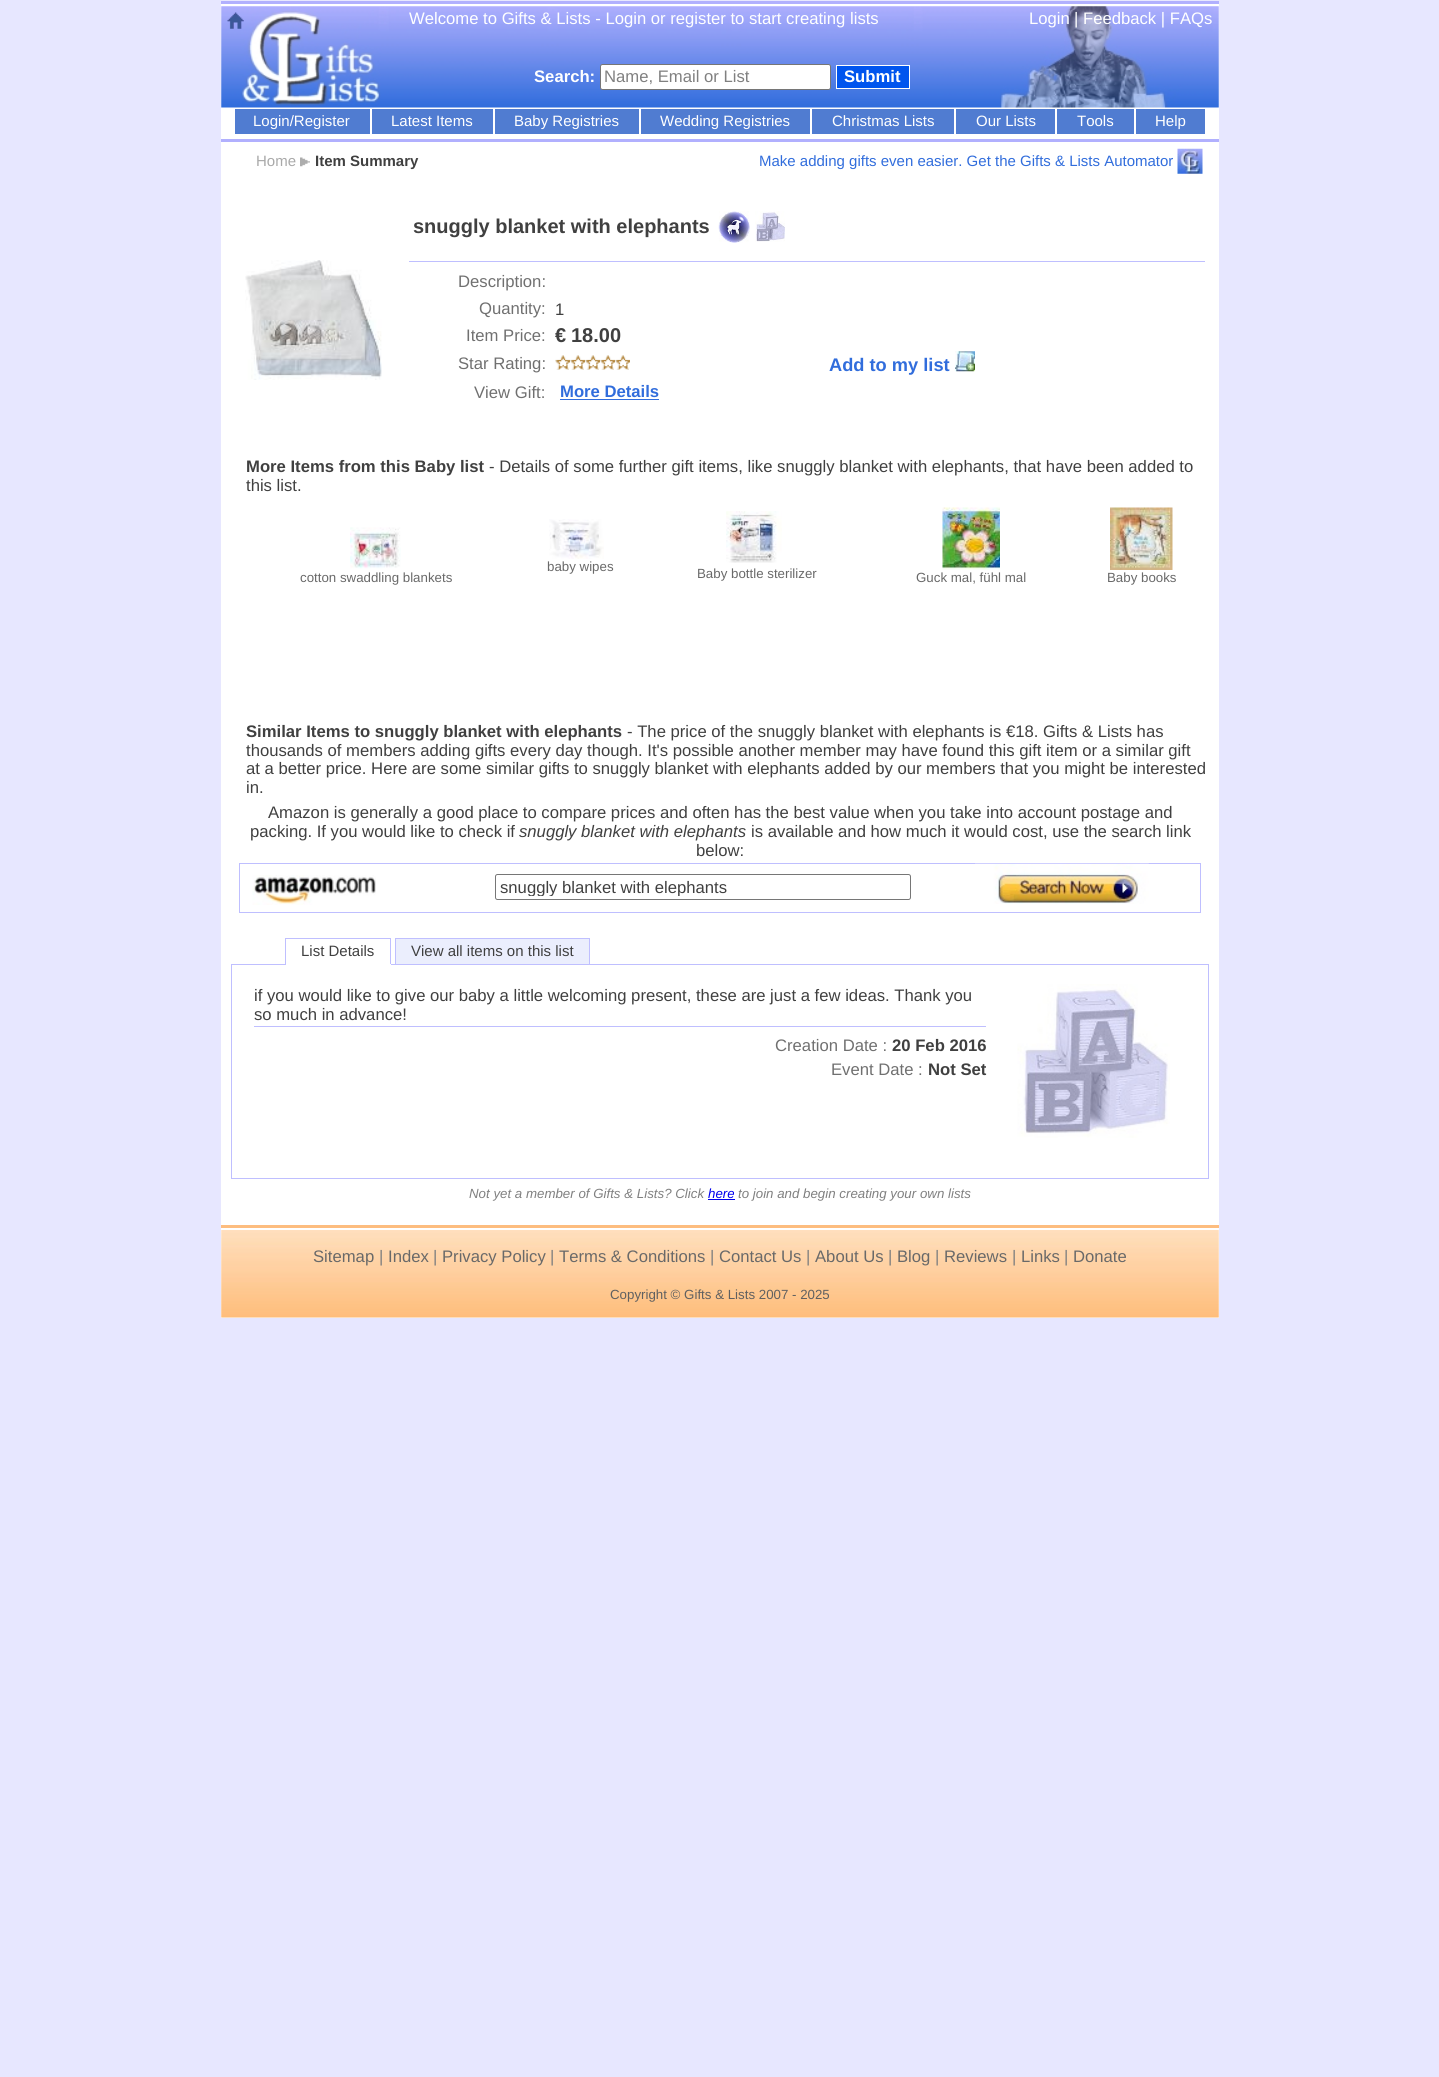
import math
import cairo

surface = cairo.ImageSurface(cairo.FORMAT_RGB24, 1439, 2077)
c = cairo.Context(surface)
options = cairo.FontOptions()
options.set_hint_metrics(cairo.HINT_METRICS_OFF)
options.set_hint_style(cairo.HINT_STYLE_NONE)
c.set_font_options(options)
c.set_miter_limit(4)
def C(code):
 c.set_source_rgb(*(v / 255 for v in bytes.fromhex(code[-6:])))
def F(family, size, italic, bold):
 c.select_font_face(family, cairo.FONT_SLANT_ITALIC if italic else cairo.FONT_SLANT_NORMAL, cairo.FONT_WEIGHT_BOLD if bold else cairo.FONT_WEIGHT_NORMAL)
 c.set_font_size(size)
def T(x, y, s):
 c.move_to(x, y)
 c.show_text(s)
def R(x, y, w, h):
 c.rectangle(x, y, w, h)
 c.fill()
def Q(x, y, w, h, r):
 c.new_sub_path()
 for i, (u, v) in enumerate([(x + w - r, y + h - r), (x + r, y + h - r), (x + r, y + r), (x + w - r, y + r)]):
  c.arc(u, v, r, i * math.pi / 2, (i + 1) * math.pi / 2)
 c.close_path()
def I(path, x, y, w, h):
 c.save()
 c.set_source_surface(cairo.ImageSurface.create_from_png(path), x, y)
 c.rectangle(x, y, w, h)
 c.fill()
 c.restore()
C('e7e7ff')
c.paint()
C('ffffff')
R(221,4,998,1314)
C('b1b0fe')
R(221,1,998,3)
I('1.png',221,6,998,102)
I('2.png',227,12,17,17)
F('Liberation Sans',16.67,0,0)
C('ffffff')
T(409,24,'Welcome to Gifts & Lists - Login or register to start creating lists')
T(1029,24,'Login')
T(1074,24,'| Feedback | FAQs')
F('Liberation Sans',16.67,0,1)
T(534,82,'Search:')
Q(600.5,64.5,230,25,2)
c.fill_preserve()
C('767676')
c.set_line_width(1)
c.stroke()
F('Liberation Sans',16.67,0,0)
C('808080')
T(604,82,'Name, Email or List')
C('0055ee')
c.rectangle(836.5,65.5,73,23)
c.fill_preserve()
C('ffffff')
c.stroke()
F('Liberation Sans',16.67,0,1)
T(844,82,'Submit')
C('507cd1')
R(235,109,135,25)
F('Liberation Sans',15,0,0)
C('ffffff')
T(253,126,'Login/Register')
C('507cd1')
R(372,109,121,25)
C('ffffff')
T(391,126,'Latest Items')
C('507cd1')
R(495,109,144,25)
C('ffffff')
T(514,126,'Baby Registries')
C('507cd1')
R(641,109,169,25)
C('ffffff')
T(660,126,'Wedding Registries')
C('507cd1')
R(812,109,142,25)
C('ffffff')
T(832,126,'Christmas Lists')
C('507cd1')
R(956,109,99,25)
C('ffffff')
T(976,126,'Our Lists')
C('507cd1')
R(1057,109,77,25)
C('ffffff')
T(1077,126,'Tools')
C('507cd1')
R(1136,109,69,25)
C('ffffff')
T(1155,126,'Help')
C('b1b0fe')
R(221,139,998,3)
C('a9a9a9')
T(256,166,'Home')
I('3.png',300,157,10,10)
F('Liberation Sans',15,0,1)
C('404040')
T(315,166,'Item Summary')
F('Liberation Sans',15,0,0)
C('316ddc')
T(759,166,'Make adding gifts even easier. Get the Gifts & Lists Automator')
I('4.png',1177,148,26,26)
I('5.png',245,260,137,120)
C('bfbfff')
R(409,261,796,1)
F('Liberation Sans',20,0,1)
C('404040')
T(413,233,'snuggly blanket with elephants')
I('6.png',718,211,32,32)
I('7.png',755,211,30,31)
F('Liberation Sans',16.67,0,0)
C('707070')
T(458,287,'Description:')
T(479,314,'Quantity:')
C('404040')
T(555,315,'1')
C('707070')
T(466,341,'Item Price:')
F('Liberation Sans',20,0,1)
C('404040')
T(555,342,'€')
T(571,342,'18.00')
F('Liberation Sans',16.67,0,0)
C('707070')
T(458,369,'Star Rating:')
I('8.png',555,355,15,15)
I('8.png',570,355,15,15)
I('8.png',585,355,15,15)
I('9.png',600,355,15,15)
I('9.png',615,355,15,15)
F('Liberation Sans',18.25,0,1)
C('316ddc')
T(829,371,'Add to my list')
I('10.png',955,351,20,21)
F('Liberation Sans',16.67,0,0)
C('707070')
T(474,398,'View Gift:')
F('Liberation Sans',16.67,0,1)
C('316ddc')
T(560,397,'More Details')
R(560,399,99,1)
C('404040')
T(246,472,'More Items from this Baby list')
F('Liberation Sans',16.67,0,0)
T(489,472,'- Details of some further gift items, like snuggly blanket with elephants, that have been added to')
T(246,491,'this list.')
I('11.png',350,527,51,42)
F('Liberation Sans',13.3,0,0)
C('696969')
T(300,582,'cotton swaddling blankets')
I('12.png',549,519,55,40)
T(547,571,'baby wipes')
I('13.png',726,511,56,52)
T(697,578,'Baby bottle sterilizer')
I('14.png',942,507,58,63)
T(916,582,'Guck mal, fühl mal')
I('15.png',1110,507,63,63)
T(1107,582,'Baby books')
F('Liberation Sans',16.67,0,1)
C('404040')
T(246,737,'Similar Items to snuggly blanket with elephants')
F('Liberation Sans',16.67,0,0)
T(627,737,'- The price of the snuggly blanket with elephants is €18. Gifts & Lists has')
T(246,756,'thousands of members adding gifts every day though. It\'s possible another member may have found this gift item or a similar gift')
T(246,774,'at a better price. Here are some similar gifts to snuggly blanket with elephants added by our members that you might be interested')
T(246,793,'in.')
T(268,818,'Amazon is generally a good place to compare prices and often has the best value when you take into account postage and')
T(250,837,'packing. If you would like to check if')
F('Liberation Sans',16.67,1,0)
T(519,837,'snuggly blanket with elephants')
F('Liberation Sans',16.67,0,0)
T(751,837,'is available and how much it would cost, use the search link')
T(696,856,'below:')
c.rectangle(239.5,863.5,961,49)
C('bfbfff')
c.stroke()
I('16.png',252,875,124,30)
Q(495.5,874.5,415,25,2)
C('767676')
c.stroke()
c.save()
c.rectangle(500,878,406,18)
c.clip()
C('404040')
T(500,893,'snuggly blanket with elephants')
c.restore()
I('17.png',975,863,174,41)
C('bfbfff')
R(231,964,978,1)
F('Liberation Sans',15,0,0)
C('404040')
T(301,956,'List Details')
C('bfbfff')
R(285,938,106,1)
R(390,938,1,27)
C('ffffff')
R(285,964,106,1)
C('bfbfff')
R(285,938,1,27)
C('ebeefd')
R(396,939,193,25)
C('404040')
T(411,956,'View all items on this list')
C('bfbfff')
R(395,938,195,1)
R(589,938,1,26)
R(395,938,1,26)
R(1208,965,1,214)
R(231,1178,978,1)
R(231,965,1,214)
R(254,1026,732,1)
F('Liberation Sans',16.67,0,0)
C('404040')
T(254,1001,'if you would like to give our baby a little welcoming present, these are just a few ideas. Thank you')
T(254,1020,'so much in advance!')
C('707070')
T(775,1051,'Creation Date :')
F('Liberation Sans',16.67,0,1)
C('404040')
T(892,1051,'20 Feb 2016')
F('Liberation Sans',16.67,0,0)
C('707070')
T(831,1075,'Event Date :')
F('Liberation Sans',16.67,0,1)
C('404040')
T(928,1075,'Not Set')
I('18.png',1017,984,153,154)
F('Liberation Sans',13.3,1,0)
C('808080')
T(469,1198,'Not yet a member of Gifts & Lists? Click')
C('0000ee')
T(708,1198,'here')
R(708,1199,27,1)
C('808080')
T(738,1198,'to join and begin creating your own lists')
C('fdbd7f')
R(221,1225,998,3)
I('19.png',221,1230,998,88)
F('Liberation Sans',16.67,0,0)
C('696969')
T(313,1262,'Sitemap')
C('808080')
T(379,1262,'|')
C('696969')
T(388,1262,'Index')
C('808080')
T(433,1262,'|')
C('696969')
T(442,1262,'Privacy Policy')
C('808080')
T(550,1262,'|')
C('696969')
T(559,1262,'Terms & Conditions')
C('808080')
T(710,1262,'|')
C('696969')
T(719,1262,'Contact Us')
C('808080')
T(806,1262,'|')
C('696969')
T(815,1262,'About Us')
C('808080')
T(888,1262,'|')
C('696969')
T(897,1262,'Blog')
C('808080')
T(935,1262,'|')
C('696969')
T(944,1262,'Reviews')
C('808080')
T(1012,1262,'|')
C('696969')
T(1021,1262,'Links')
C('808080')
T(1064,1262,'|')
C('696969')
T(1073,1262,'Donate')
F('Liberation Sans',13.3,0,0)
C('606060')
T(610,1299,'Copyright © Gifts & Lists 2007 - 2025')
surface.write_to_png('o.png')
